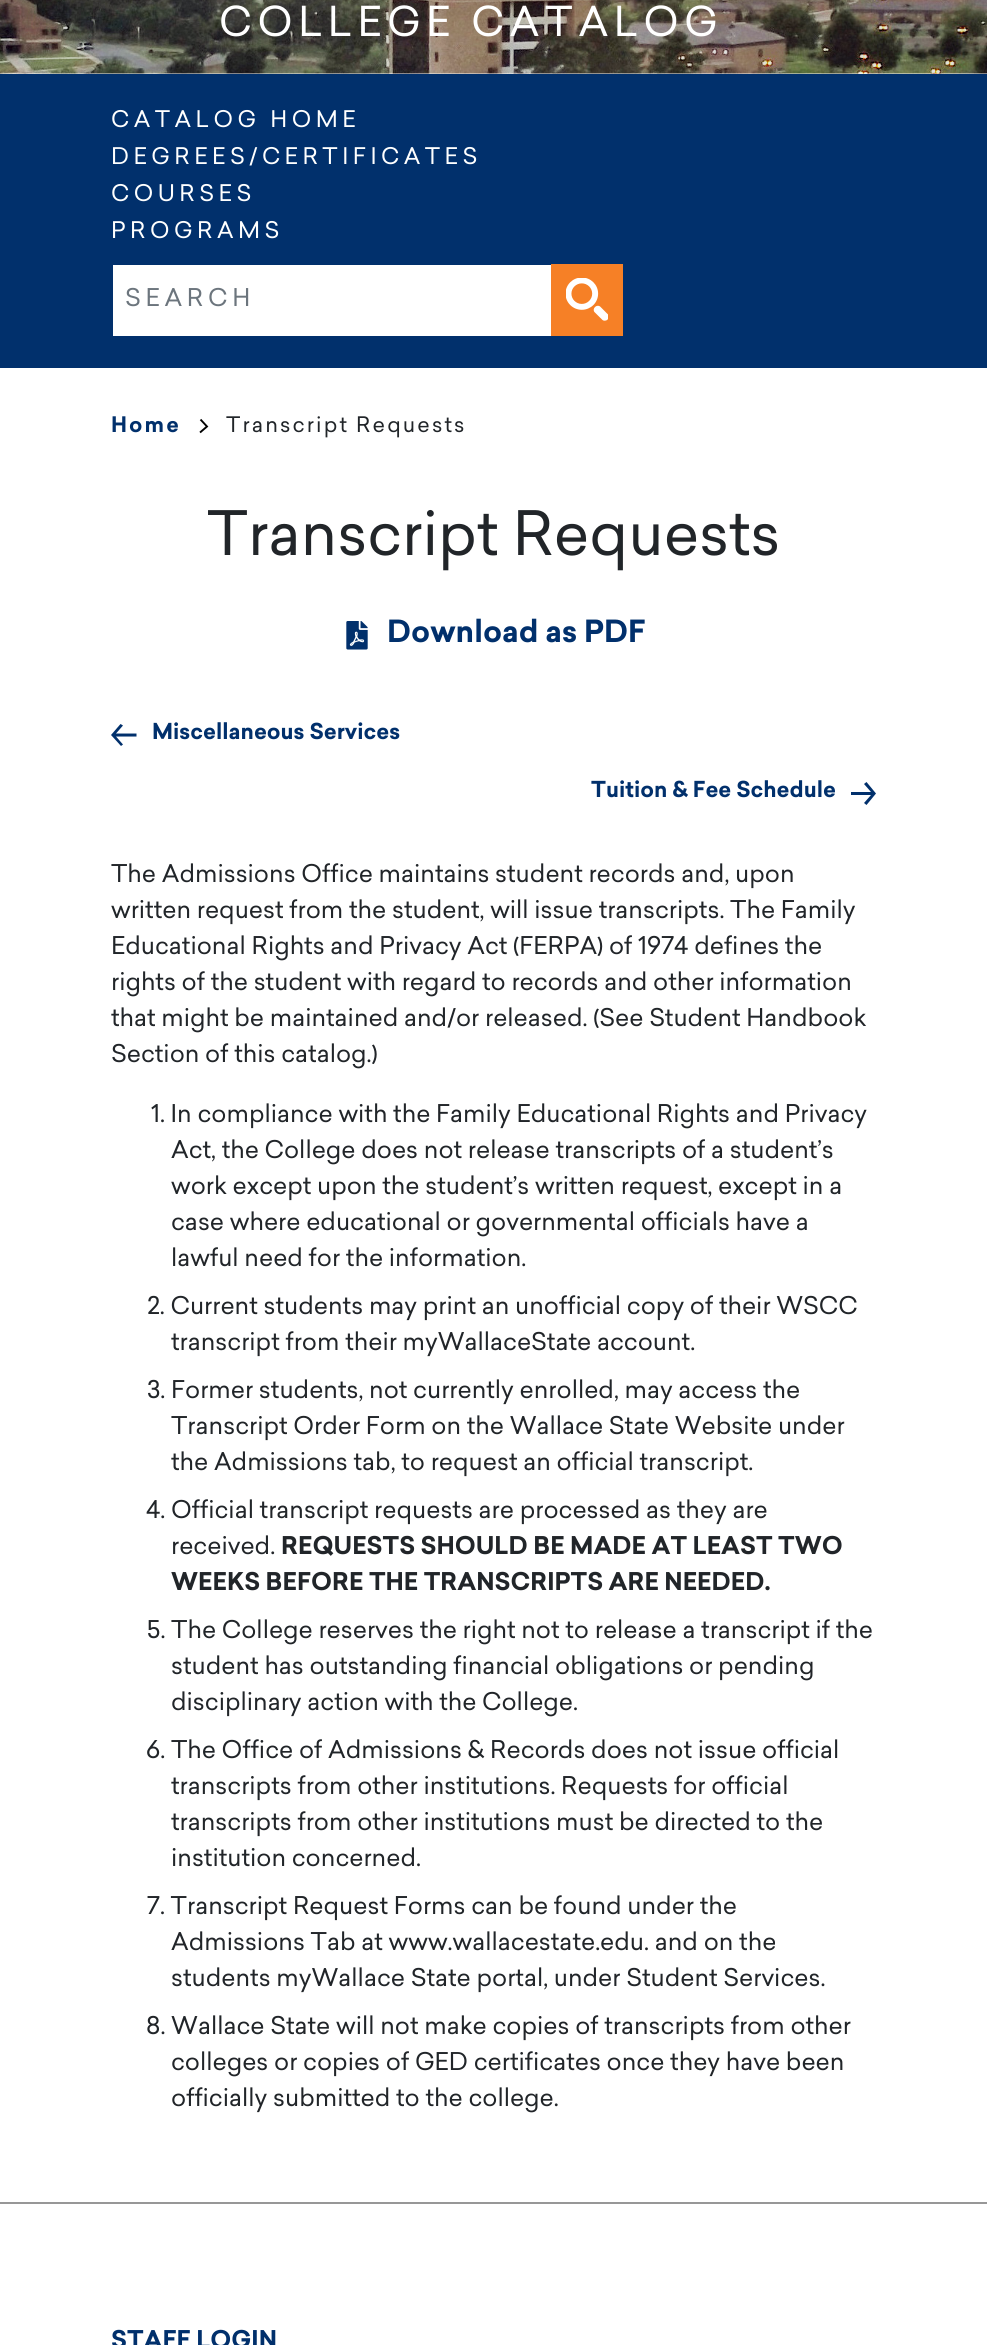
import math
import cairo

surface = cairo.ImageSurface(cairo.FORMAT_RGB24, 987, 2345)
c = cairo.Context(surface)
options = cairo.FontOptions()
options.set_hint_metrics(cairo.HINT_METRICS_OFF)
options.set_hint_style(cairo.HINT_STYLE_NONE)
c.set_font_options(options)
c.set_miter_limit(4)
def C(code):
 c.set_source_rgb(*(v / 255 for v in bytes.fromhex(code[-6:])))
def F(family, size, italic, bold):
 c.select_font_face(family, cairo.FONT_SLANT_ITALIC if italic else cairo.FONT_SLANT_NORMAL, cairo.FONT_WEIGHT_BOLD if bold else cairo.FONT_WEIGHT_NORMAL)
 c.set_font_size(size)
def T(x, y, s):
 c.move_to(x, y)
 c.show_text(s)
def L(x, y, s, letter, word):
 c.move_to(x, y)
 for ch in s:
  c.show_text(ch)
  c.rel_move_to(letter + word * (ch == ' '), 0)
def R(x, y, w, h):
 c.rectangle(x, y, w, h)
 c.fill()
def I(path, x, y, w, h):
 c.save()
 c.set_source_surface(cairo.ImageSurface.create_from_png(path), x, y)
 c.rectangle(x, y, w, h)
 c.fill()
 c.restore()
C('ffffff')
c.paint()
I('1.png',0,0,987,74)
F('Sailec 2',40.5,0,0)
C('ffffff')
L(219,36,'COLLEGE CATALOG',5.7,0)
C('01306c')
R(0,74,987,294)
F('Sailec 2',22.5,0,0)
C('ffffff')
L(111,127,'CATALOG HOME',4.5,0)
L(111,164,'DEGREES/CERTIFICATES',4.5,0)
L(111,201,'COURSES',4.5,0)
L(111,238,'PROGRAMS',4.5,0)
R(113,265,438,71)
F('Sailec 2',24,0,0)
C('6c757d')
L(125,306,'SEARCH',4.75,0)
C('f68026')
R(551,264,72,72)
I('2.png',566,278,42,43)
F('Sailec',21,0,0)
C('01306c')
L(111,432,'Home',2.1,0)
c.new_path()
c.move_to(200,432.5)
c.line_to(207,426.5)
c.line_to(200.5,419.5)
C('000000')
c.set_line_width(1.9)
c.stroke()
F('Sailec 2',21,0,0)
C('212529')
L(226,432,'Transcript Requests',2.1,0)
F('Sailec 2',60,0,0)
T(207,555,'Transcript Requests')
I('3.png',346,621,22,29)
F('Sailec',30,0,0)
C('01306c')
T(387,642,'Download as PDF')
c.new_path()
c.move_to(111,735)
c.line_to(121,746)
c.line_to(123,744.5)
c.line_to(116,736.5)
c.line_to(136.5,736.5)
c.line_to(136.5,733.5)
c.line_to(116,733.5)
c.line_to(123,725.5)
c.line_to(120.5,724)
c.close_path()
c.fill()
F('Sailec',21.6,0,0)
T(152,739,'Miscellaneous Services')
T(591,797,'Tuition & Fee Schedule')
c.save()
c.rectangle(851,782,25,24)
c.clip()
c.new_path()
c.move_to(876,793.5)
c.line_to(866.5,782)
c.line_to(864,784)
c.line_to(871,792)
c.line_to(850.5,792)
c.line_to(850.5,795)
c.line_to(871,795)
c.line_to(864,803)
c.line_to(866.5,805)
c.close_path()
c.fill()
c.restore()
F('Sailec 2',24,0,0)
C('212529')
T(111,882,'The Admissions Office maintains student records and, upon')
T(111,918,'written request from the student, will issue transcripts. The Family')
T(111,954,'Educational Rights and Privacy Act (FERPA) of 1974 defines the')
T(111,990,'rights of the student with regard to records and other information')
T(111,1026,'that might be maintained and/or released. (See Student Handbook')
T(111,1062,'Section of this catalog.)')
T(151,1122,'1. In compliance with the Family Educational Rights and Privacy')
T(171,1158,'Act, the College does not release transcripts of a student’s')
T(171,1194,'work except upon the student’s written request, except in a')
T(171,1230,'case where educational or governmental officials have a')
T(171,1266,'lawful need for the information.')
T(147,1314,'2. Current students may print an unofficial copy of their WSCC')
T(171,1350,'transcript from their myWallaceState account.')
T(147,1398,'3. Former students, not currently enrolled, may access the')
T(171,1434,'Transcript Order Form on the Wallace State Website under')
T(171,1470,'the Admissions tab, to request an official transcript.')
T(146,1518,'4. Official transcript requests are processed as they are')
T(171,1554,'received.')
F('Sailec',24,0,0)
T(281,1554,'REQUESTS SHOULD BE MADE AT LEAST TWO')
T(171,1590,'WEEKS BEFORE THE TRANSCRIPTS ARE NEEDED.')
F('Sailec 2',24,0,0)
T(147,1638,'5. The College reserves the right not to release a transcript if the')
T(171,1674,'student has outstanding financial obligations or pending')
T(171,1710,'disciplinary action with the College.')
T(146,1758,'6. The Office of Admissions & Records does not issue official')
T(171,1794,'transcripts from other institutions. Requests for official')
T(171,1830,'transcripts from other institutions must be directed to the')
T(171,1866,'institution concerned.')
T(147,1914,'7. Transcript Request Forms can be found under the')
T(171,1950,'Admissions Tab at www.wallacestate.edu. and on the')
T(171,1986,'students myWallace State portal, under Student Services.')
T(146,2034,'8. Wallace State will not make copies of transcripts from other')
T(171,2070,'colleges or copies of GED certificates once they have been')
T(171,2106,'officially submitted to the college.')
C('979797')
R(0,2202,987,2)
F('Sailec',24,0,0)
C('01306c')
T(111,2348,'STAFF LOGIN')
surface.write_to_png('o.png')
